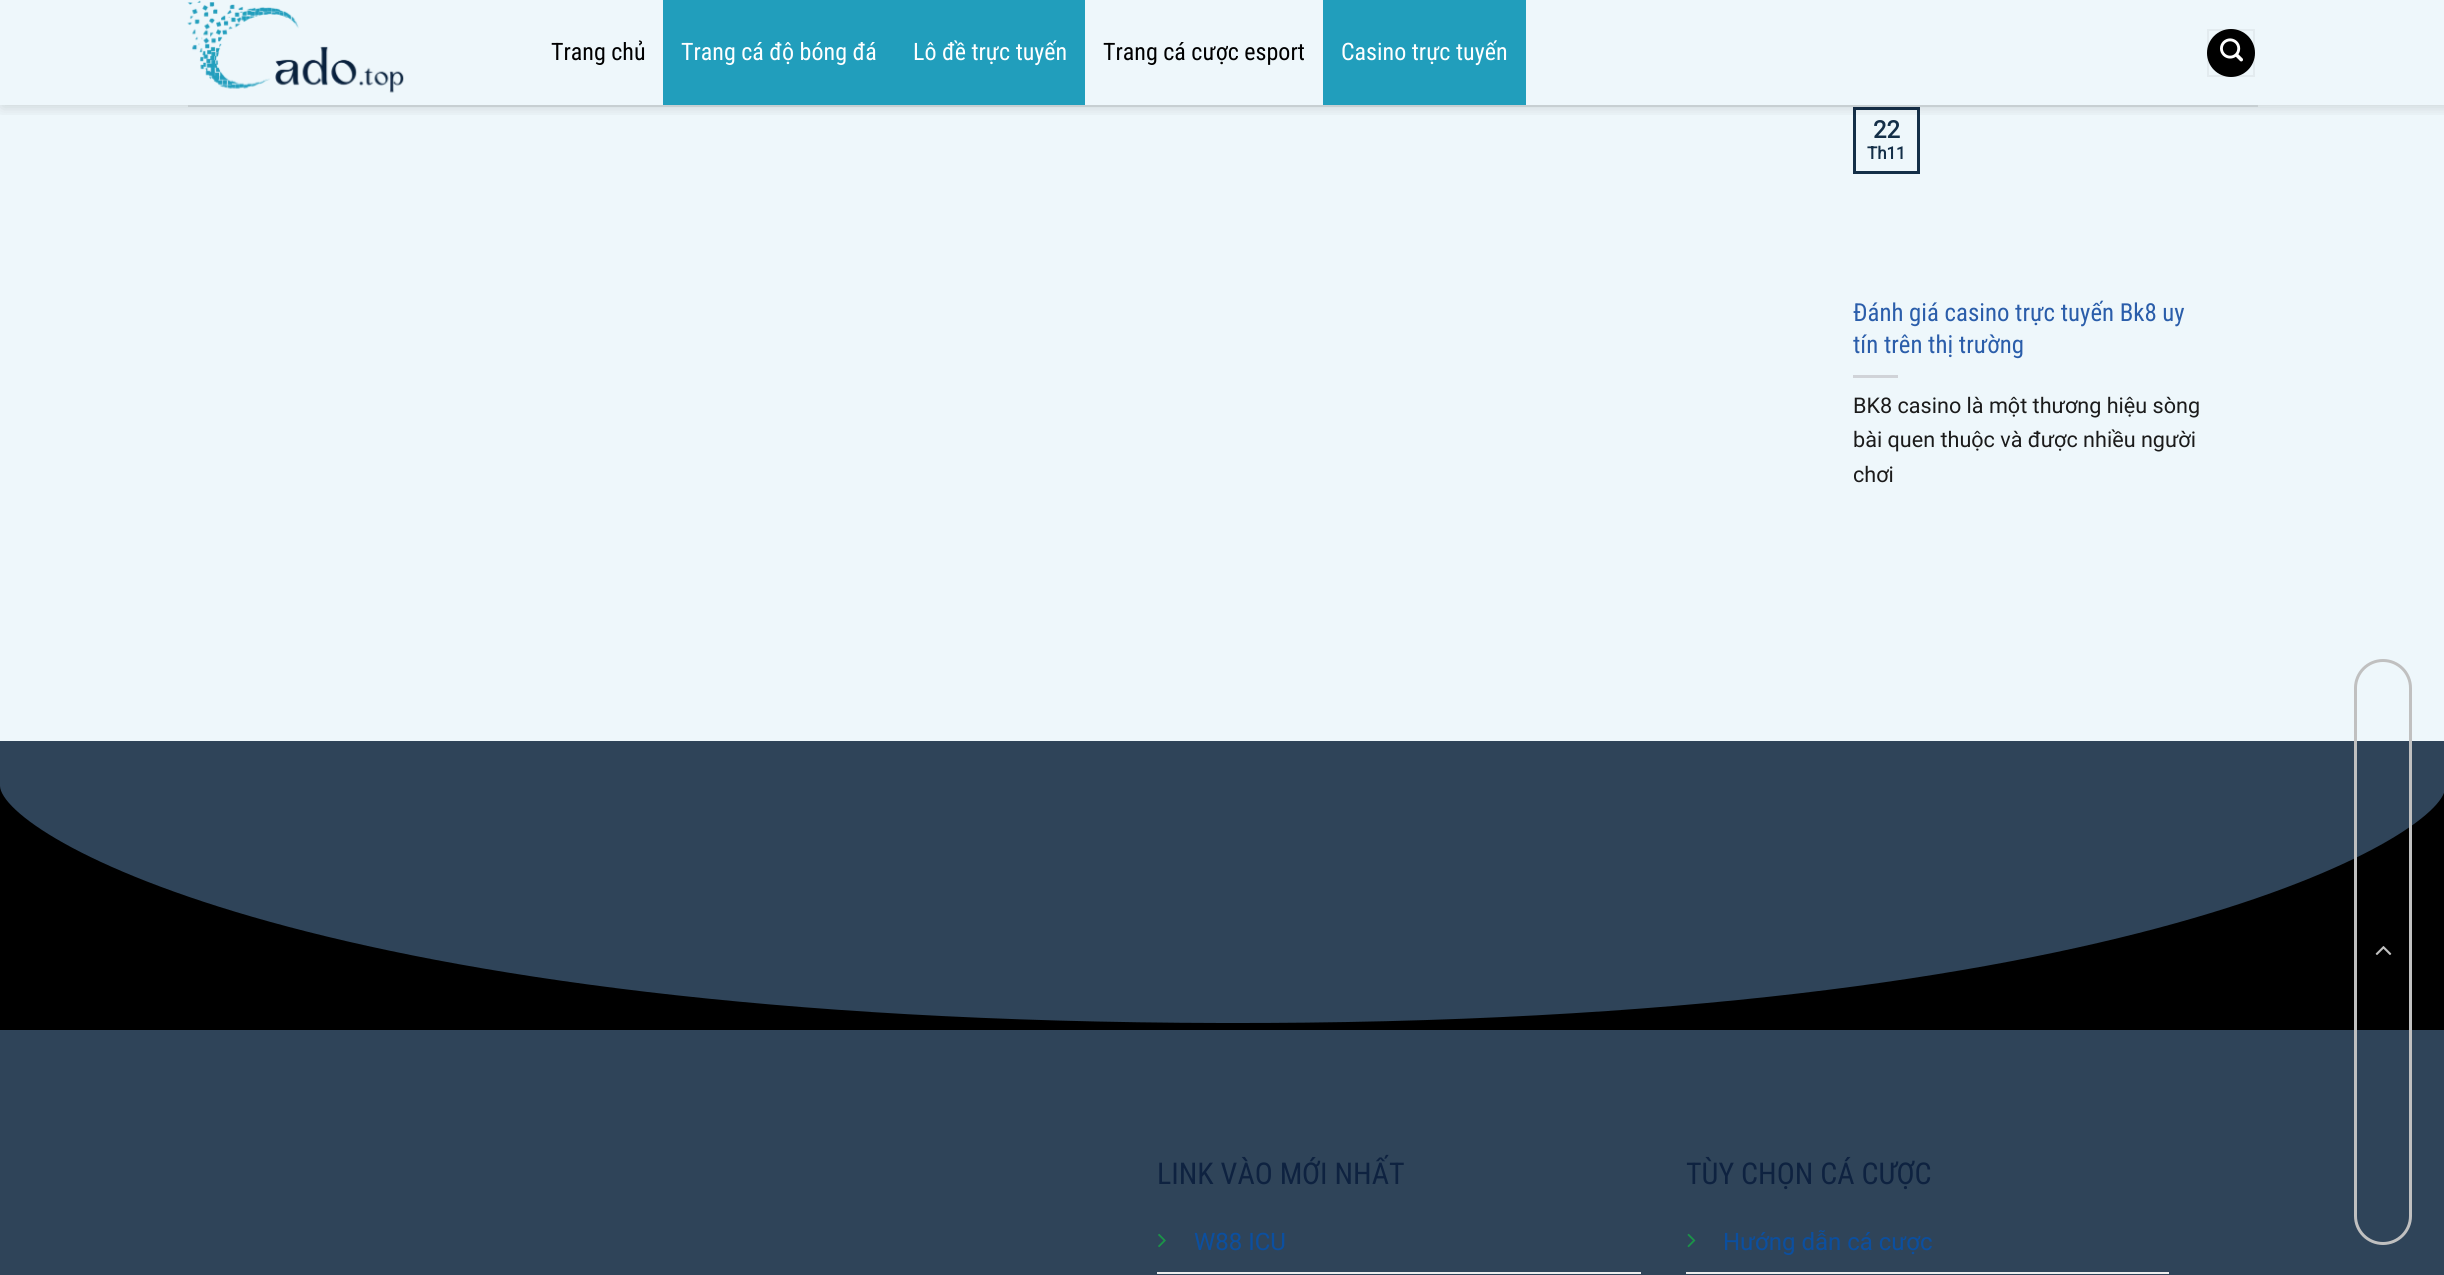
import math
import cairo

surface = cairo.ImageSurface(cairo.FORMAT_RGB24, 2444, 1275)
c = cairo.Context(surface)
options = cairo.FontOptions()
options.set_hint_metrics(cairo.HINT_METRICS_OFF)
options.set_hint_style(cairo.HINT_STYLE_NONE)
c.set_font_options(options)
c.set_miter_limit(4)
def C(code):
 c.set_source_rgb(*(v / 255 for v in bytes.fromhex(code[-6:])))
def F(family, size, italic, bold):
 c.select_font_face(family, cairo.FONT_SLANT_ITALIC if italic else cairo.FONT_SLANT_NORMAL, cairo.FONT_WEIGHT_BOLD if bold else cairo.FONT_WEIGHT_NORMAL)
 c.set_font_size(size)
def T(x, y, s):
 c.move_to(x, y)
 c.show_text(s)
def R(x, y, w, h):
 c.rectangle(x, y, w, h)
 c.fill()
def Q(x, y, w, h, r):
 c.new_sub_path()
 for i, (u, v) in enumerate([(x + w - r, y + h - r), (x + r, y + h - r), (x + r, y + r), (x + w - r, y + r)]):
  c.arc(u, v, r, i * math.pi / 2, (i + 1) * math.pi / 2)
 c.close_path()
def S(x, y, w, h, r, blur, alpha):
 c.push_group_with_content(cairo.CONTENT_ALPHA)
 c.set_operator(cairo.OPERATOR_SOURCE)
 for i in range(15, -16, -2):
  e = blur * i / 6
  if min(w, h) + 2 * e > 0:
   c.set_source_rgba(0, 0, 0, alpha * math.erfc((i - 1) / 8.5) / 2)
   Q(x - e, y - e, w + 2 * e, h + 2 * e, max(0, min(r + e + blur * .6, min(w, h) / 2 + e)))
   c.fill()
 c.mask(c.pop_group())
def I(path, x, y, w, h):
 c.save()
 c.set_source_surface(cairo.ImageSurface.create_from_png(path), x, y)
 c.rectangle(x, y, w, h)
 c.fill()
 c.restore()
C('eef7fb')
c.paint()
c.rectangle(1854.5,108.5,64,64)
C('142f48')
c.set_line_width(3)
c.stroke()
c.save()
c.rectangle(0,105,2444,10)
c.clip()
C('000000')
S(2,2,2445,105,0,7.5,.15)
c.restore()
I('1.png',187,0,217,93)
F('Roboto Condensed',24,0,0)
C('000000')
T(551,60,'Trang chủ')
C('219ebc')
R(663,0,422,105)
C('ffffff')
T(681,60,'Trang cá độ bóng đá')
T(913,60,'Lô đề trực tuyến')
C('000000')
T(1103,60,'Trang cá cược esport')
C('219ebc')
R(1323,0,203,105)
C('ffffff')
T(1341,60,'Casino trực tuyến')
C('000000')
c.new_path()
c.arc(2231,53,24,0,2 * math.pi)
c.fill()
c.rectangle(2208,30,46,46)
c.set_source_rgba(0,0,0,0.05)
c.set_line_width(2)
c.stroke()
I('2.png',2220,38,23,24)
C('c7cfd2')
R(188,105,2070,2)
F('Roboto',24,0,1)
C('142f48')
T(1873,138,'22')
F('Roboto',17,0,1)
T(1867,159,'Th11')
F('Roboto Condensed',24.8,0,0)
C('2a5daa')
T(1853,321,'Đánh giá casino trực tuyến Bk8 uy')
T(1853,353,'tín trên thị trường')
C('d0d3d8')
R(1853,375,45,3)
F('Roboto',21.6,0,0)
C('1b1b1b')
T(1853,413,'BK8 casino là một thương hiệu sòng')
T(1853,447,'bài quen thuộc và được nhiều người')
T(1853,482,'chơi')
C('2f4459')
R(0,741,2444,534)
C('000000')
c.new_path()
c.move_to(1222,1023)
c.curve_to(310,1021,2,834,0,786)
c.line_to(0,1030)
c.line_to(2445,1030)
c.line_to(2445,788)
c.curve_to(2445,833,2135,1025,1222,1023)
c.close_path()
c.fill()
F('Roboto Condensed',30,0,0)
C('0e2240')
T(1157,1184,'LINK VÀO MỚI NHẤT')
C('ececec')
R(1157,1272,484,2)
I('3.png',1158,1233,8,15)
F('Roboto',24,0,0)
C('0b4fa0')
T(1194,1250,'W88 ICU')
F('Roboto Condensed',30,0,0)
C('0e2240')
T(1686,1184,'TÙY CHỌN CÁ CƯỢC')
C('ececec')
R(1686,1272,483,2)
I('4.png',1687,1233,9,15)
F('Roboto',24,0,0)
C('0b4fa0')
T(1723,1250,'Hướng dẫn cá cược')
Q(2355.5,660.5,55,583,27.5)
C('c0c0c0')
c.set_line_width(3)
c.stroke()
I('5.png',2375,946,17,9)
surface.write_to_png('o.png')
